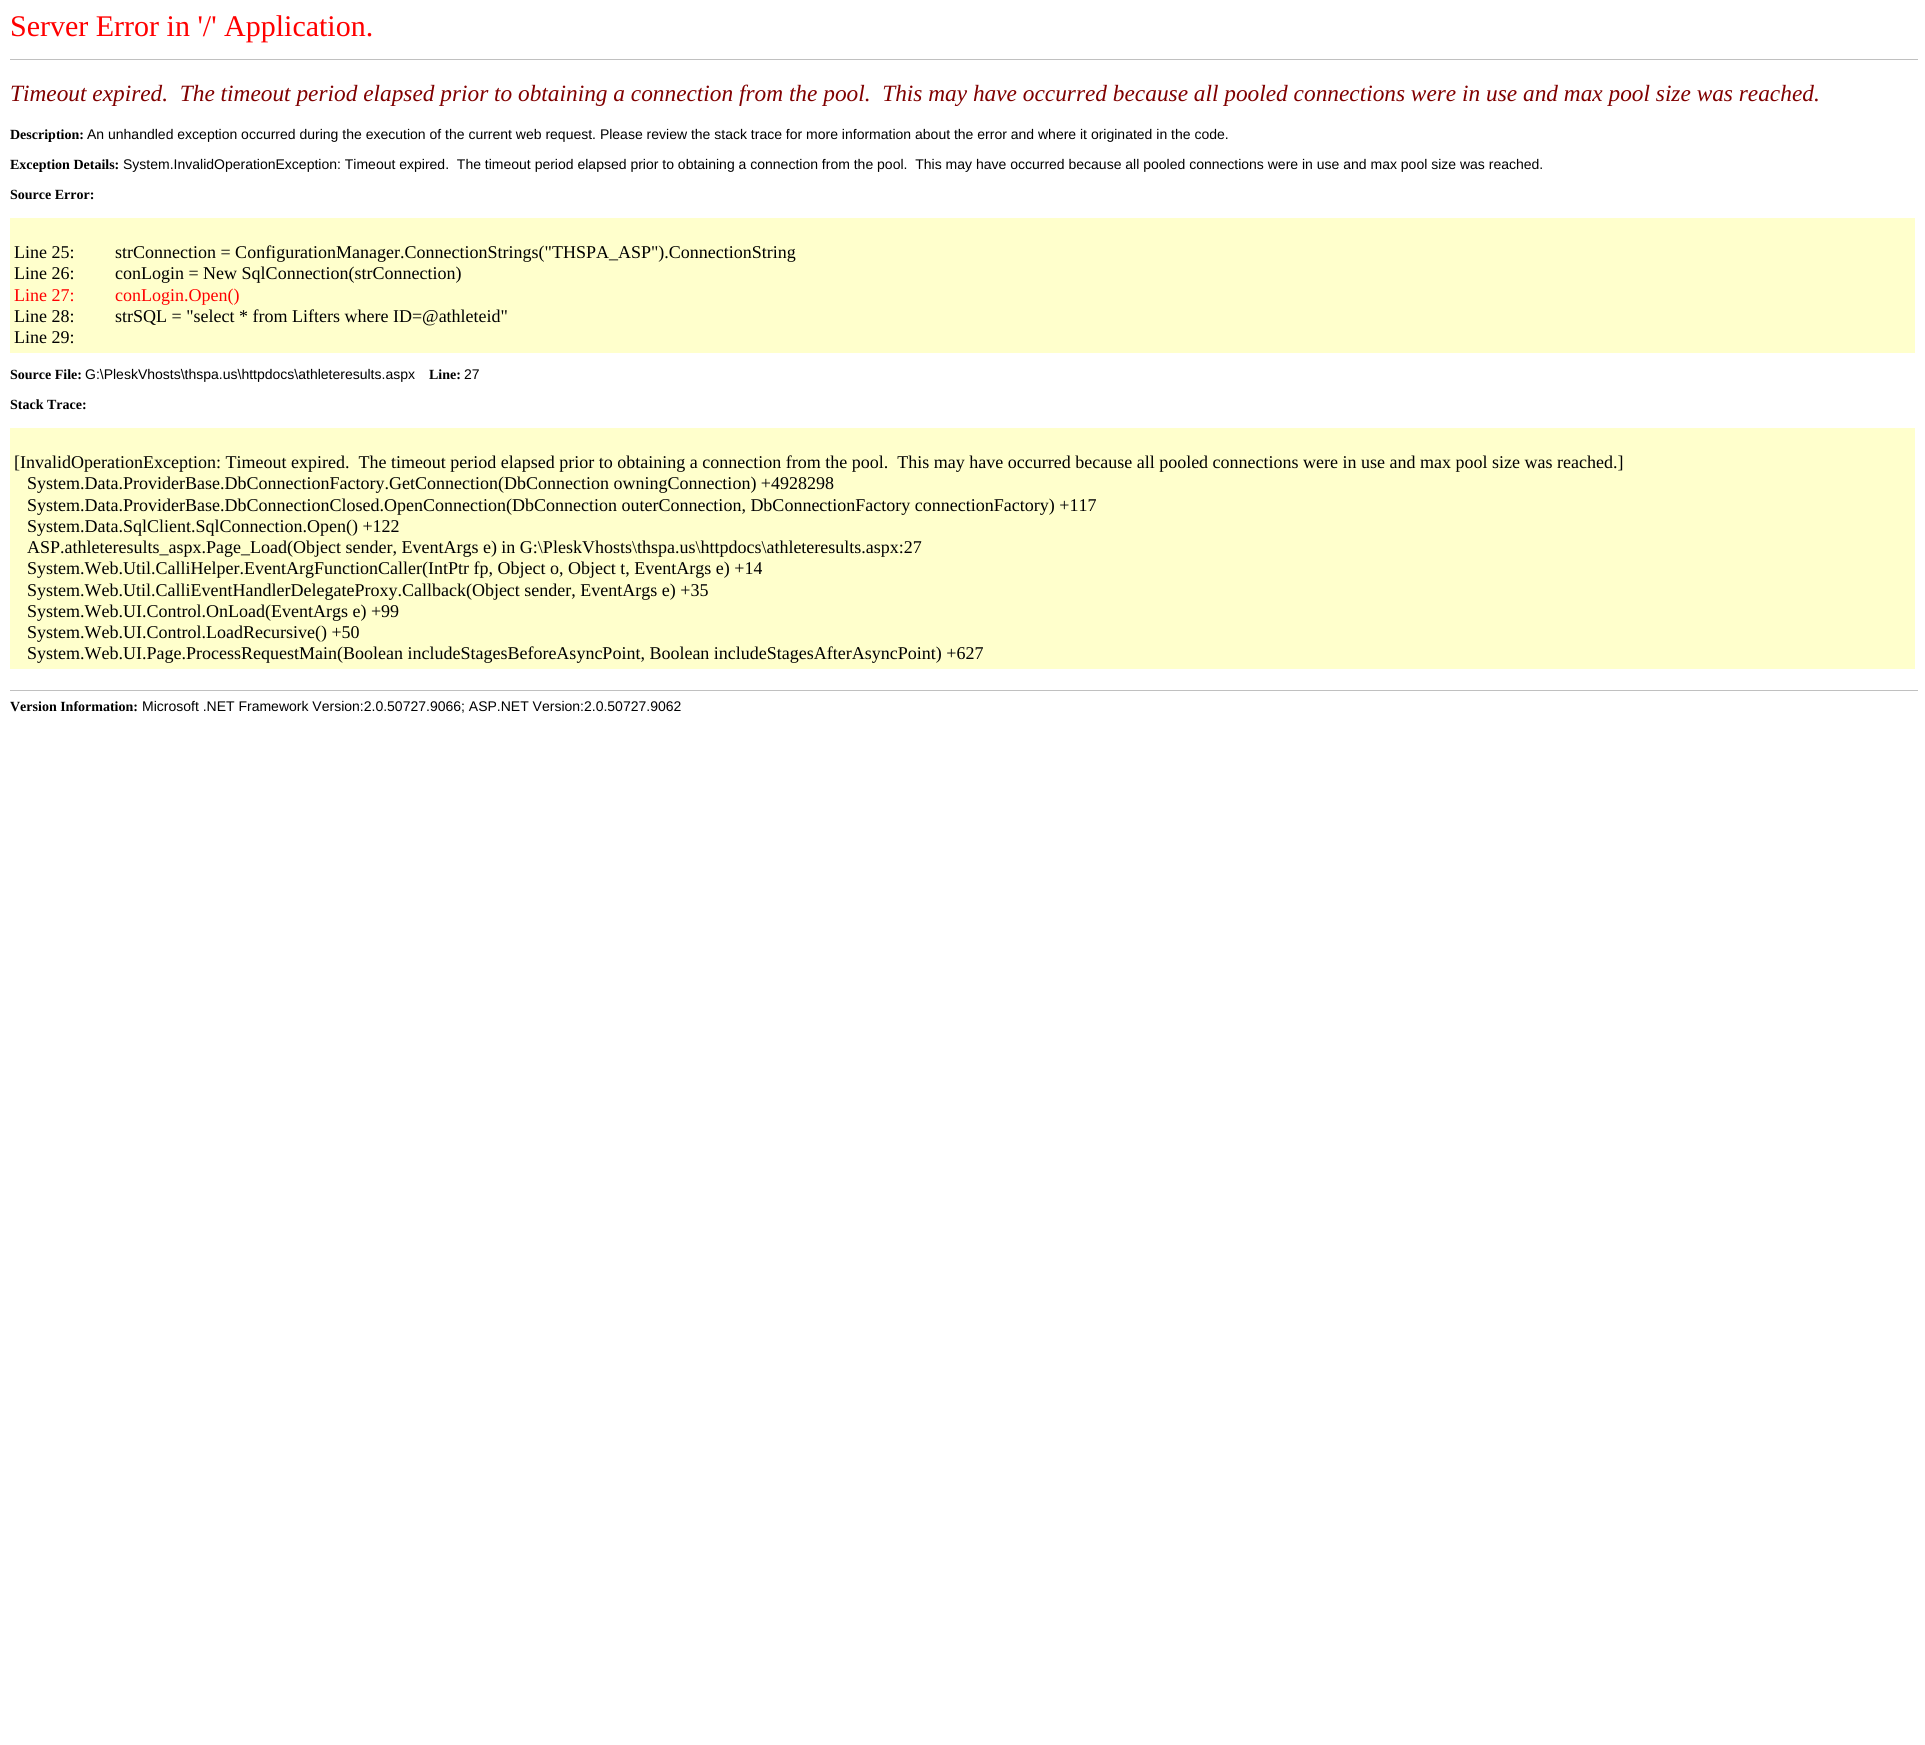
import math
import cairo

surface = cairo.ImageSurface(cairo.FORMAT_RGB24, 1925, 1745)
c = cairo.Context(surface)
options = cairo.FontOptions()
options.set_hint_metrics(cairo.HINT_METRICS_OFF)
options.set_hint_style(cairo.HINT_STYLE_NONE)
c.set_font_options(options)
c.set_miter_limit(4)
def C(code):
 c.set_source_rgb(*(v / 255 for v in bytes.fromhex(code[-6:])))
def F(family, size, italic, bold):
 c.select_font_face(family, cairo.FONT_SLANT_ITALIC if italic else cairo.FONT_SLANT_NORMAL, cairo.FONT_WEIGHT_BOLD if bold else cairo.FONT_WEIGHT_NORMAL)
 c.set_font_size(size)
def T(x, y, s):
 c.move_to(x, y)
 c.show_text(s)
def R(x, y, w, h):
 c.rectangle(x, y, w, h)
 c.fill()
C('ffffff')
c.paint()
F('Liberation Serif',30,0,0)
C('ff0000')
T(10,36,'Server Error in \'/\' Application.')
C('c0c0c0')
R(10,59,1908,1)
F('Liberation Serif',23.33,1,0)
C('800000')
T(10,101,'Timeout expired.  The timeout period elapsed prior to obtaining a connection from the pool.  This may have occurred because all pooled connections were in use and max pool size was reached.')
F('Liberation Serif',14,0,1)
C('000000')
T(10,139,'Description:')
F('Liberation Sans',14,0,0)
T(87,139,'An unhandled exception occurred during the execution of the current web request. Please review the stack trace for more information about the error and where it originated in the code.')
F('Liberation Serif',14,0,1)
T(10,169,'Exception Details:')
F('Liberation Sans',14,0,0)
T(123,169,'System.InvalidOperationException: Timeout expired.  The timeout period elapsed prior to obtaining a connection from the pool.  This may have occurred because all pooled connections were in use and max pool size was reached.')
F('Liberation Serif',14,0,1)
T(10,199,'Source Error:')
C('ffffcc')
R(10,218,1905,135)
F('Liberation Serif',18,0,0)
C('000000')
T(14,258,'Line 25:         strConnection = ConfigurationManager.ConnectionStrings("THSPA_ASP").ConnectionString')
T(14,279,'Line 26:         conLogin = New SqlConnection(strConnection)')
C('ff0000')
T(14,301,'Line 27:         conLogin.Open()')
C('000000')
T(14,322,'Line 28:         strSQL = "select * from Lifters where ID=@athleteid"')
T(14,343,'Line 29:')
F('Liberation Serif',14,0,1)
T(10,379,'Source File:')
F('Liberation Sans',14,0,0)
T(85,379,'G:\\PleskVhosts\\thspa.us\\httpdocs\\athleteresults.aspx')
F('Liberation Serif',14,0,1)
T(429,379,'Line:')
F('Liberation Sans',14,0,0)
T(464,379,'27')
F('Liberation Serif',14,0,1)
T(10,409,'Stack Trace:')
C('ffffcc')
R(10,428,1905,241)
F('Liberation Serif',18,0,0)
C('000000')
T(14,468,'[InvalidOperationException: Timeout expired.  The timeout period elapsed prior to obtaining a connection from the pool.  This may have occurred because all pooled connections were in use and max pool size was reached.]')
T(27,489,'System.Data.ProviderBase.DbConnectionFactory.GetConnection(DbConnection owningConnection) +4928298')
T(27,511,'System.Data.ProviderBase.DbConnectionClosed.OpenConnection(DbConnection outerConnection, DbConnectionFactory connectionFactory) +117')
T(27,532,'System.Data.SqlClient.SqlConnection.Open() +122')
T(27,553,'ASP.athleteresults_aspx.Page_Load(Object sender, EventArgs e) in G:\\PleskVhosts\\thspa.us\\httpdocs\\athleteresults.aspx:27')
T(27,574,'System.Web.Util.CalliHelper.EventArgFunctionCaller(IntPtr fp, Object o, Object t, EventArgs e) +14')
T(27,596,'System.Web.Util.CalliEventHandlerDelegateProxy.Callback(Object sender, EventArgs e) +35')
T(27,617,'System.Web.UI.Control.OnLoad(EventArgs e) +99')
T(27,638,'System.Web.UI.Control.LoadRecursive() +50')
T(27,659,'System.Web.UI.Page.ProcessRequestMain(Boolean includeStagesBeforeAsyncPoint, Boolean includeStagesAfterAsyncPoint) +627')
C('c0c0c0')
R(10,690,1908,1)
F('Liberation Serif',14,0,1)
C('000000')
T(10,711,'Version Information:')
F('Liberation Sans',14,0,0)
T(142,711,'Microsoft .NET Framework Version:2.0.50727.9066; ASP.NET Version:2.0.50727.9062')
surface.write_to_png('o.png')
